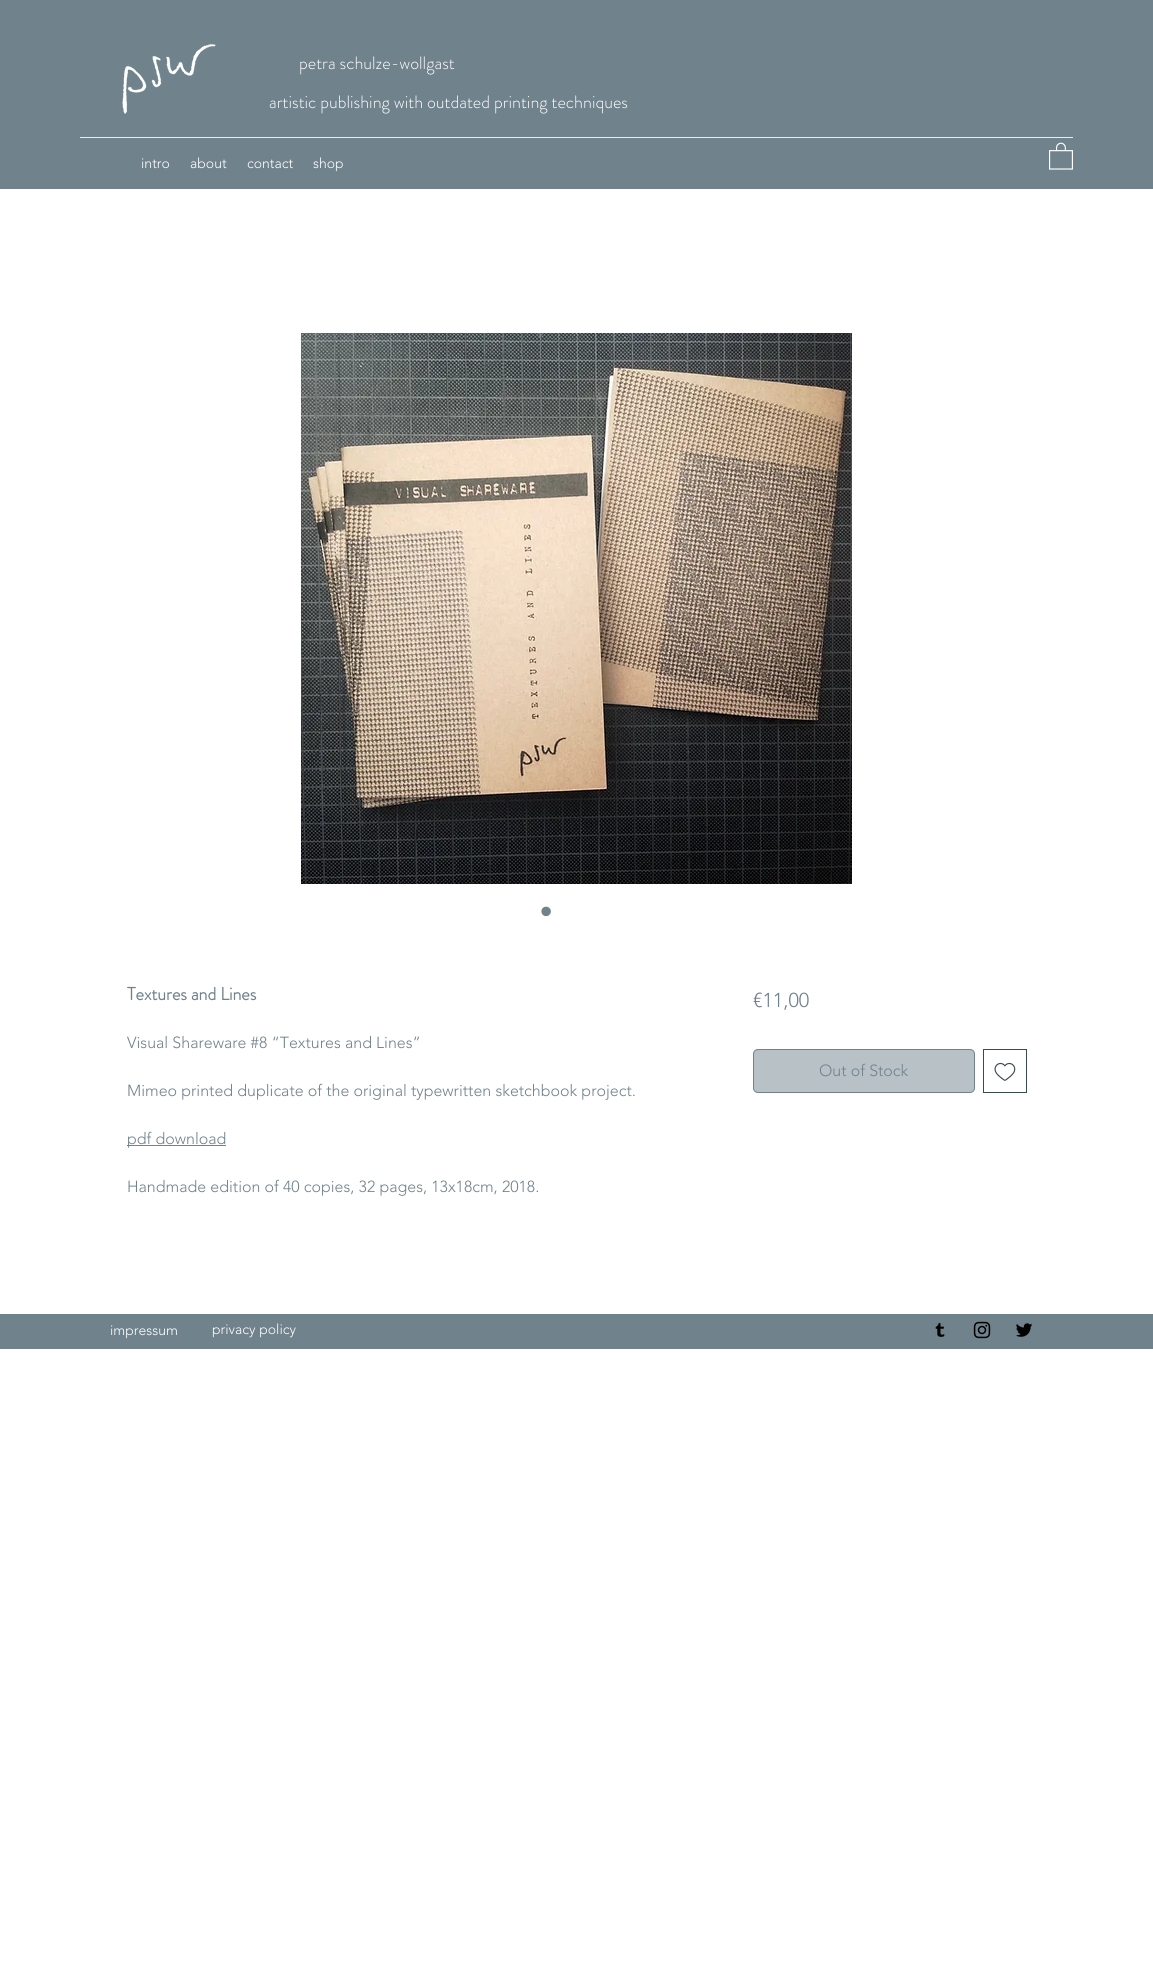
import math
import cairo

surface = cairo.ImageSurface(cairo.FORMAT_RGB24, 1153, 1986)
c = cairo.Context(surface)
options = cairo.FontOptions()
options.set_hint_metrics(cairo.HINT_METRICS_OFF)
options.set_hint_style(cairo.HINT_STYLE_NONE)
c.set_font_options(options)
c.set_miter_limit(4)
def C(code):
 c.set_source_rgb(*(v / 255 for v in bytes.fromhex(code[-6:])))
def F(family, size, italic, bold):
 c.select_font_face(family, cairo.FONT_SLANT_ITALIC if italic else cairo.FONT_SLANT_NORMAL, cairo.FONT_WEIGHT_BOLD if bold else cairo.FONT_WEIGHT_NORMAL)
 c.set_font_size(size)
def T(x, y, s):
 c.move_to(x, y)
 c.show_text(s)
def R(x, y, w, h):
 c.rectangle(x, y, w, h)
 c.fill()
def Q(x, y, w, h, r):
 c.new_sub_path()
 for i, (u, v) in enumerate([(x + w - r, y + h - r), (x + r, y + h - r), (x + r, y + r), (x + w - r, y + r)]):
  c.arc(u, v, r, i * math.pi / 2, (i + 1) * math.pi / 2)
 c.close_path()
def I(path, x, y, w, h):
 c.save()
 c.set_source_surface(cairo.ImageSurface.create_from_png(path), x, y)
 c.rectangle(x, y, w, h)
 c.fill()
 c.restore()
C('ffffff')
c.paint()
C('70828c')
R(0,0,1153,189)
I('1.png',122,44,94,70)
F('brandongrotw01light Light',18,0,0)
C('ffffff')
T(299,69,'petra schulze-wollgast')
T(269,108,'artistic publishing with outdated printing techniques')
C('eaecee')
R(80,137,993,1)
F('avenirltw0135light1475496 Light',14,0,0)
C('ffffff')
T(141,168,'intro')
T(190,168,'about')
T(247,168,'contact')
T(313,168,'shop')
I('2.png',1049,142,24,28)
I('3.png',301,333,551,551)
F('Liberation Sans',35,0,0)
C('70828c')
T(540,923,'•')
F('brandongrotw01light',18,0,1)
T(127,1000,'Textures and Lines')
F('avenirltw0135light1475496 Light',16,0,0)
T(127,1048,'Visual Shareware #8 “Textures and Lines”')
T(127,1096,'Mimeo printed duplicate of the original typewritten sketchbook project.')
R(127,1145,99,1)
T(127,1144,'pdf download')
T(127,1192,'Handmade edition of 40 copies, 32 pages, 13x18cm, 2018.')
F('avenirltw0135light1475496 Light',20,0,0)
T(753,1007,'€11,00')
C('b7c1c6')
Q(753.5,1049.5,221,43,4.5)
c.fill_preserve()
C('70828c')
c.set_line_width(1)
c.stroke()
F('avenirltw0135light1475496 Light',16,0,0)
T(819,1076,'Out of Stock')
c.rectangle(983.5,1049.5,43,43)
C('3a4a52')
c.stroke()
I('4.png',994,1062,22,19)
C('70828c')
R(0,1314,1153,35)
F('avenirltw0135light1475496 Light',14,0,0)
C('ffffff')
T(110,1335,'impressum')
T(212,1334,'privacy policy')
I('5.png',935,1323,10,14)
I('6.png',973,1321,18,18)
I('7.png',1016,1323,17,14)
surface.write_to_png('o.png')
